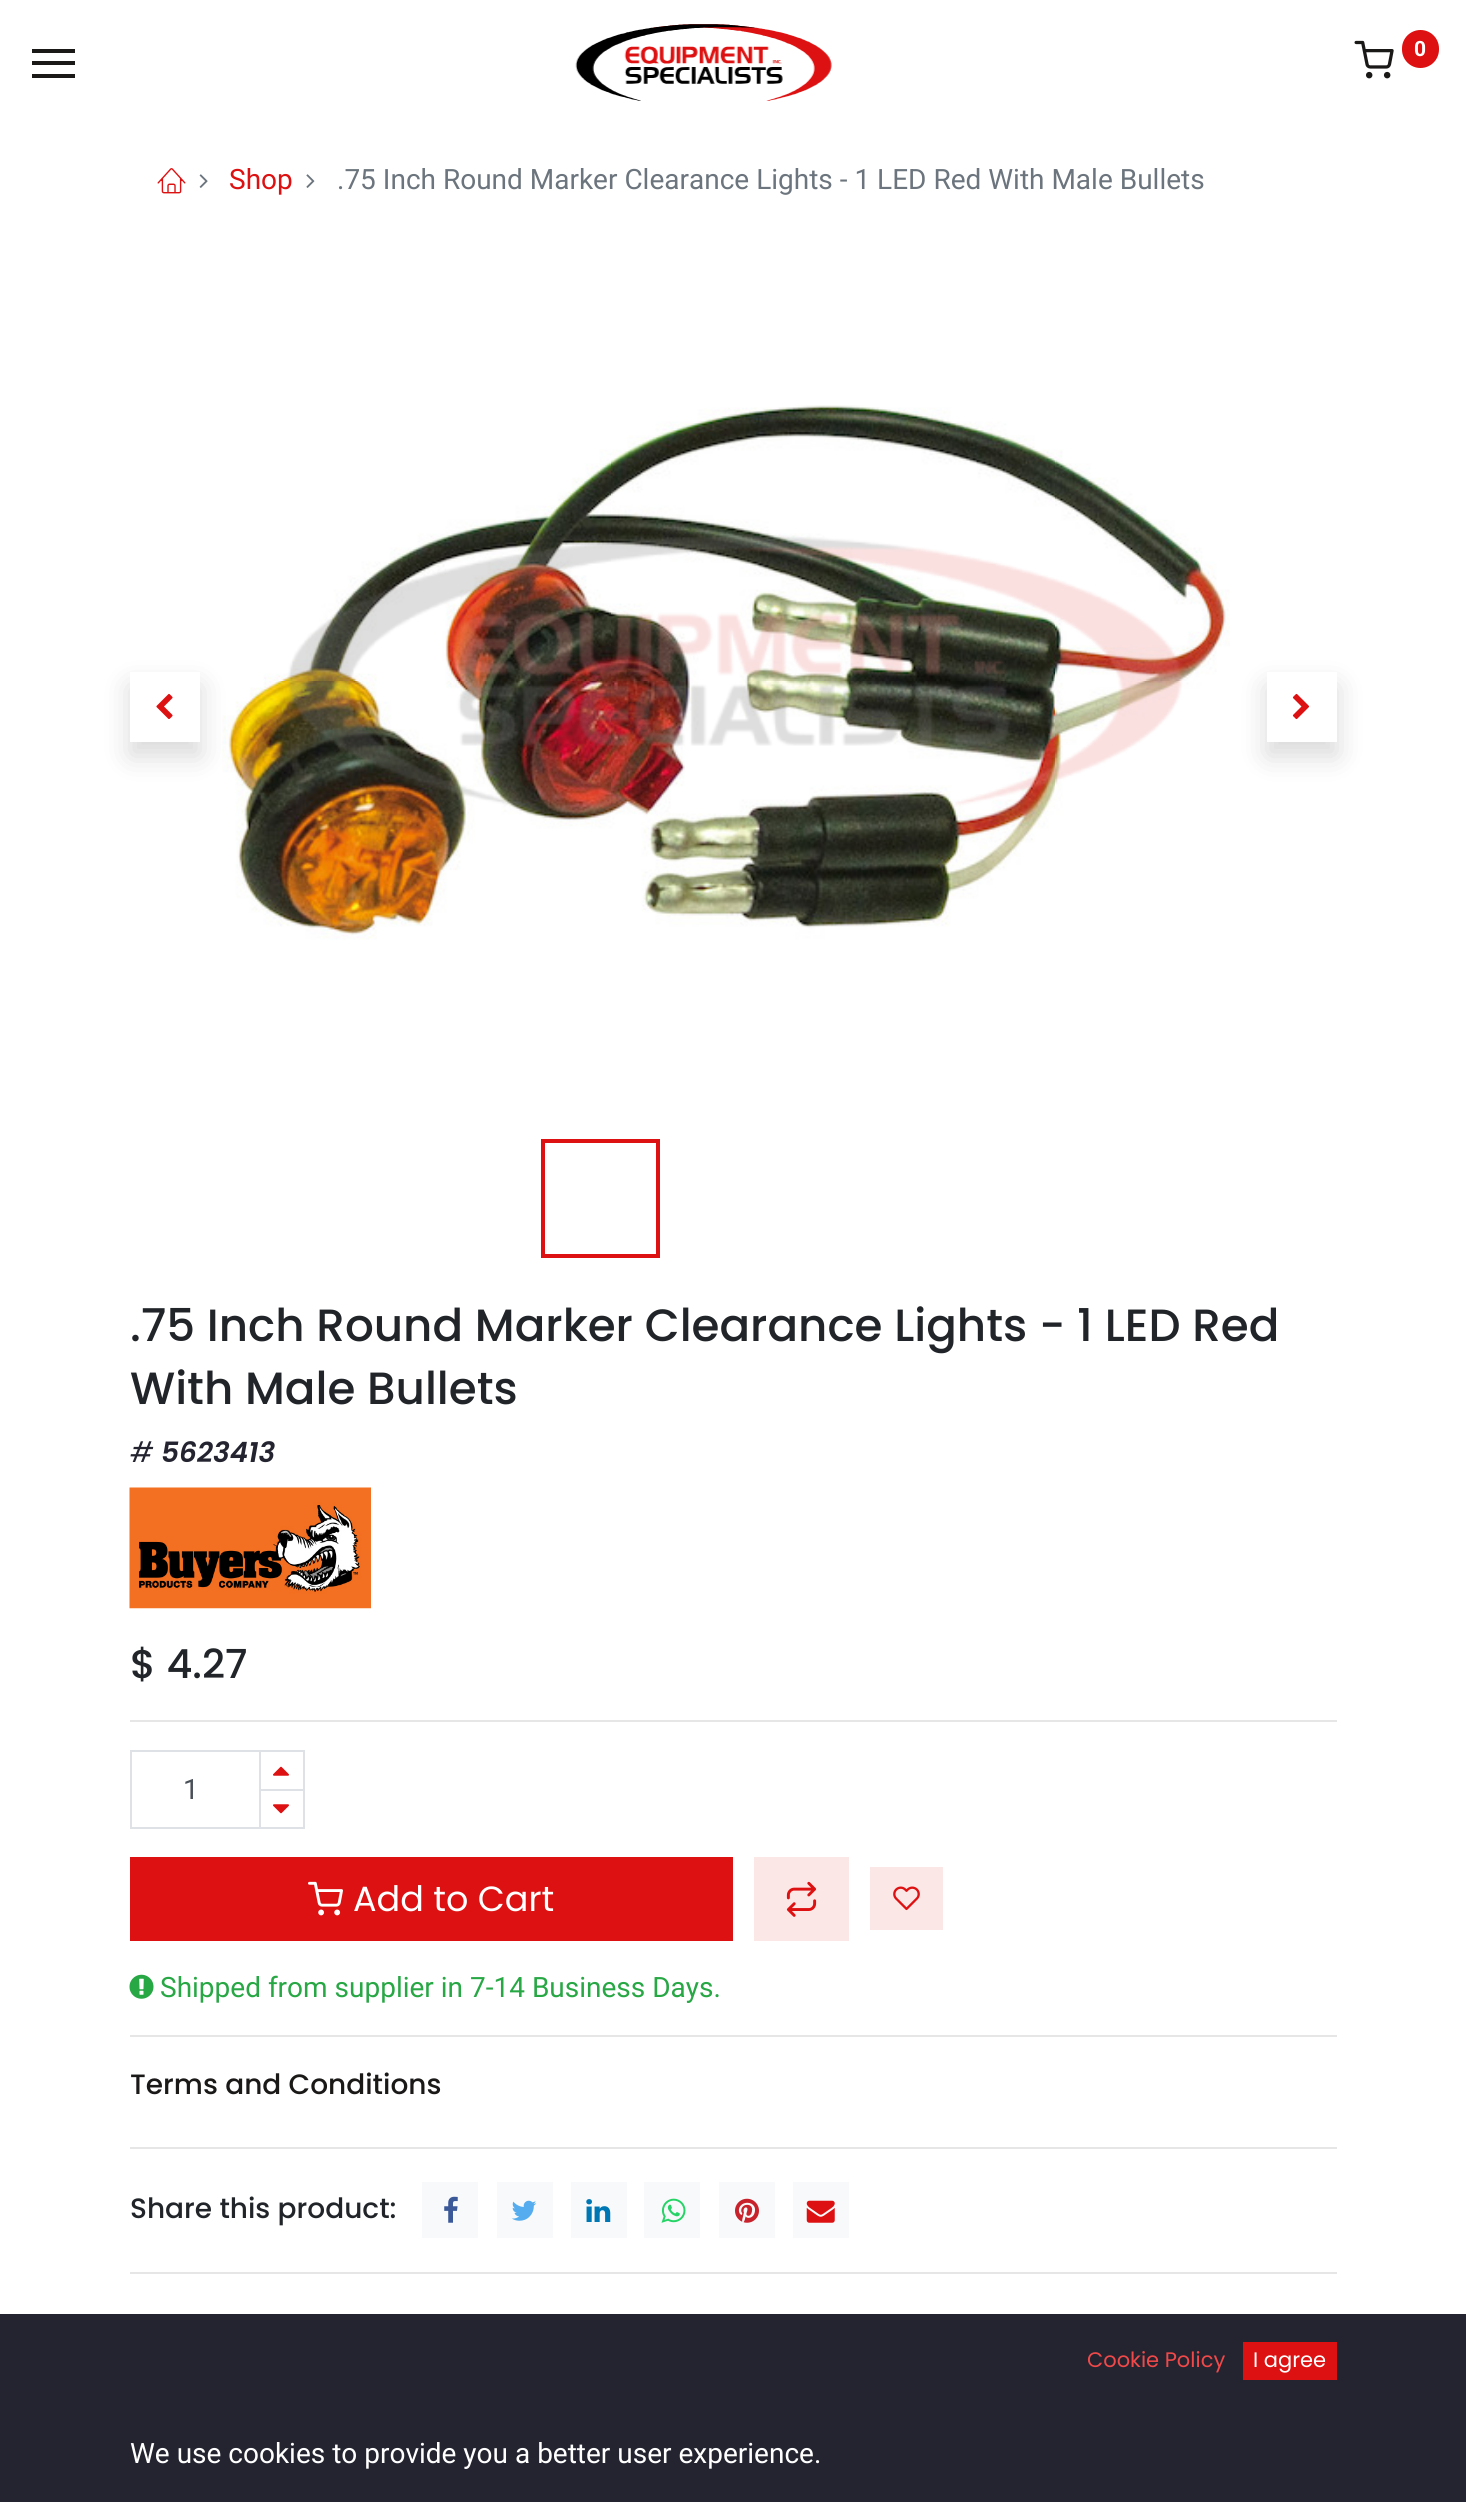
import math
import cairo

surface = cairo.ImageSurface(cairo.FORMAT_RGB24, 1466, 2502)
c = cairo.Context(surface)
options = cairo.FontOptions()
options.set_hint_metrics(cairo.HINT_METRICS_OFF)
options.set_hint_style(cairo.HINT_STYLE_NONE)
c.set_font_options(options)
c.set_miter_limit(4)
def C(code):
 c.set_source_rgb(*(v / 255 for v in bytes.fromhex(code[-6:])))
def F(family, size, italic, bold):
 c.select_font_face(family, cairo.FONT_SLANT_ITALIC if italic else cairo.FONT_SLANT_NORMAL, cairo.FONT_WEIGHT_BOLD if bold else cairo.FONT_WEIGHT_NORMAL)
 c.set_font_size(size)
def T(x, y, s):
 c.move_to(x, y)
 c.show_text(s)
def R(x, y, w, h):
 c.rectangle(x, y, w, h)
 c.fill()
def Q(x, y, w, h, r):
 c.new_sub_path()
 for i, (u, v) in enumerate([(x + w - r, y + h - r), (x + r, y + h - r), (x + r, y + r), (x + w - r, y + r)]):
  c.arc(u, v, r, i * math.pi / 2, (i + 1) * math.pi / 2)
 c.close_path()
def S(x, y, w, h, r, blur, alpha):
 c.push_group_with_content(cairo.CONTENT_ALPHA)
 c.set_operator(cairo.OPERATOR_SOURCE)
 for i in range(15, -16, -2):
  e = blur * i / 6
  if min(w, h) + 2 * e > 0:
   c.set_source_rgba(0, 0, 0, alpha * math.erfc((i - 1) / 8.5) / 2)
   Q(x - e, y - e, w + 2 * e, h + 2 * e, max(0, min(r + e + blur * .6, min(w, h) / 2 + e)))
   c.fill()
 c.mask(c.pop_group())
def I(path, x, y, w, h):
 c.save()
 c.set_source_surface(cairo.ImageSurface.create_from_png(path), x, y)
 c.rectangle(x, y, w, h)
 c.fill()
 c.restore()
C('ffffff')
c.paint()
C('1b1818')
R(32,49,43,4)
R(32,61,43,4)
R(32,74,43,4)
I('1.png',575,24,257,77)
I('2.png',1354,40,40,39)
C('dd1111')
Q(1402,30,37,38,18.5)
c.fill()
F('Roboto',21,0,1)
C('ffffff')
T(1414,56,'0')
I('3.png',157,168,29,26)
I('4.png',199,174,9,14)
F('Roboto',28,0,0)
C('dd1111')
T(229,189,'Shop')
I('5.png',306,174,9,14)
C('6c757d')
T(337,189,'.75 Inch Round Marker Clearance Lights - 1 LED Red With Male Bullets')
I('7.png',222,405,1008,535)
C('000000')
S(130,686,70,70,0,14,.15)
C('ffffff')
R(130,672,70,70)
I('6.png',156,693,17,26)
c.save()
c.set_fill_rule(cairo.FILL_RULE_EVEN_ODD)
c.new_path()
c.move_to(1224,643)
c.line_to(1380,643)
c.line_to(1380,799)
c.line_to(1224,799)
c.close_path()
c.move_to(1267,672)
c.line_to(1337,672)
c.line_to(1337,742)
c.line_to(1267,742)
c.close_path()
c.clip()
C('000000')
S(1267,686,70,70,0,14,.15)
c.restore()
I('8.png',1292,693,18,27)
c.rectangle(543,1141,115,115)
C('dd1111')
c.set_line_width(4)
c.stroke()
F('Poppins Medium',45.2,0,0)
C('212529')
T(130,1341,'.75 Inch Round Marker Clearance Lights - 1 LED Red')
T(130,1404,'With Male Bullets')
F('Poppins',28,1,0)
C('242431')
T(130,1462,'#')
F('Poppins SemiBold',28,1,0)
T(161,1462,'5623413')
I('9.png',129,1487,242,122)
F('Poppins Medium',40,0,0)
C('212529')
T(130,1678,'$ 4.27')
C('e6e6e6')
R(130,1720,1207,2)
c.rectangle(131,1751,173,77)
C('dee2e6')
c.set_line_width(2)
c.stroke()
F('Roboto',28,0,0)
C('495057')
T(183,1799,'1')
C('dee2e6')
R(259,1789,2,38)
R(259,1789,44,2)
R(259,1752,2,38)
I('10.png',273,1766,16,10)
I('11.png',273,1804,16,10)
C('dd1111')
R(130,1857,603,84)
I('12.png',308,1881,35,35)
F('Poppins',35,0,0)
C('ffffff')
T(353,1911,'Add to Cart')
C('fce7e7')
R(754,1857,95,84)
I('13.png',786,1881,31,36)
R(870,1867,73,63)
I('14.png',893,1886,27,25)
I('15.png',129,1974,25,25)
F('Roboto',28,0,0)
C('28a745')
T(160,1997,'Shipped from supplier in 7-14 Business Days.')
C('e6e6e6')
R(130,2035,1207,2)
F('Poppins Medium',28,0,0)
C('1b1818')
T(130,2094,'Terms and Conditions')
C('e6e6e6')
R(130,2147,1207,2)
C('212529')
T(130,2218,'Share this product:')
C('f8f9fa')
R(422,2182,56,56)
I('16.png',444,2196,14,27)
R(497,2182,56,56)
I('17.png',511,2200,26,21)
R(571,2182,56,56)
I('18.png',586,2199,25,23)
R(644,2182,56,56)
I('19.png',661,2198,25,25)
R(719,2182,56,56)
I('20.png',735,2198,24,25)
R(793,2182,56,56)
I('21.png',806,2200,29,23)
C('e6e6e6')
R(130,2272,1207,2)
C('242431')
R(0,2314,1466,188)
F('Poppins',21,0,0)
C('f14949')
T(1087,2367,'Cookie Policy')
C('dd1111')
R(1243,2342,94,38)
C('ffffff')
T(1253,2367,'I agree')
F('Roboto',28,0,0)
T(130,2463,'We use cookies to provide you a better user experience.')
surface.write_to_png('o.png')
